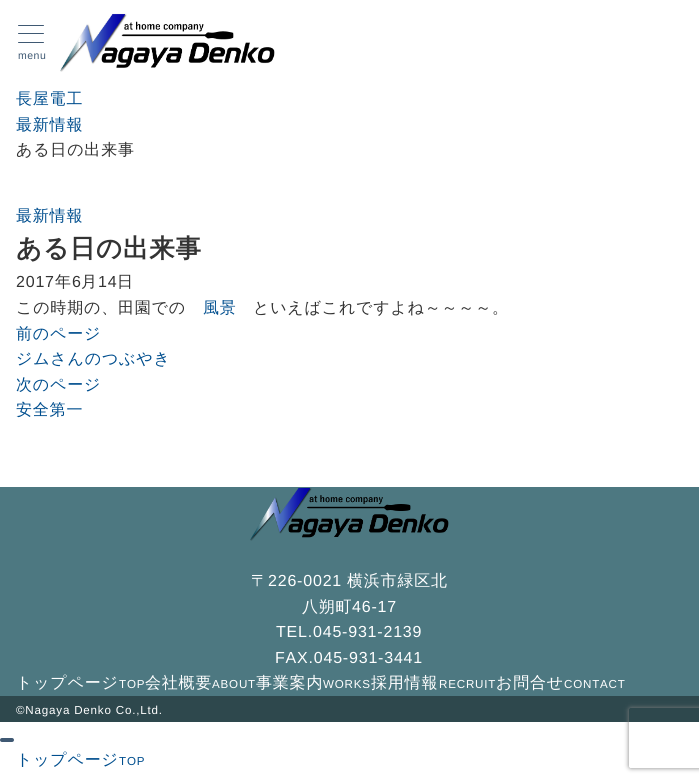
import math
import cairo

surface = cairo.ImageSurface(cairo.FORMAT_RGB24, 699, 782)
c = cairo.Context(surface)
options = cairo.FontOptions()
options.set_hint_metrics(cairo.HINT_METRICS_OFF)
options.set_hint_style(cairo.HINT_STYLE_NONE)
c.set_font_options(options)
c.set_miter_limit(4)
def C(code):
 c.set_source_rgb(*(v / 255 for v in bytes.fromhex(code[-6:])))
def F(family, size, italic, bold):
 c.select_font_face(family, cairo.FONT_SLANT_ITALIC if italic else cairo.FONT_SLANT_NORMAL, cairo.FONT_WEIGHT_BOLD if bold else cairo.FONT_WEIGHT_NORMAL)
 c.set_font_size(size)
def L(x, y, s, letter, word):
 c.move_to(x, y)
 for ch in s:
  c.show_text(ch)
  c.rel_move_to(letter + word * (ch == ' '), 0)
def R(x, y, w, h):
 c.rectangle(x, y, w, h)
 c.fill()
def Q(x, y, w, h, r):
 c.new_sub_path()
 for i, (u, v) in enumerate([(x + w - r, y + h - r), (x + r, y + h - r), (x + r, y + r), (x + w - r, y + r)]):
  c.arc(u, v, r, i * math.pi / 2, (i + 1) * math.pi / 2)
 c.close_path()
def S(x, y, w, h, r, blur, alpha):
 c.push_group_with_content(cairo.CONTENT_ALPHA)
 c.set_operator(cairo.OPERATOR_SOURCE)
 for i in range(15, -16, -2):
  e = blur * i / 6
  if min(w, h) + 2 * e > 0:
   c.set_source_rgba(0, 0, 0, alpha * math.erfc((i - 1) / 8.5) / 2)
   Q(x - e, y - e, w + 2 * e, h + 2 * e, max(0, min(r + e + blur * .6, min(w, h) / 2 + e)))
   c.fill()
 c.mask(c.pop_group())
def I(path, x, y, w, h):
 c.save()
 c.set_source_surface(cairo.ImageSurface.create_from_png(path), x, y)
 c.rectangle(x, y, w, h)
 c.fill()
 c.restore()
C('ffffff')
c.paint()
C('3f5973')
Q(18,25,26,1,.5)
c.fill()
Q(18,33,26,1,.5)
c.fill()
Q(18,42,26,1,.5)
c.fill()
F('Liberation Sans',10.5,0,0)
L(18,59,'menu',.5,0)
I('1.png',60,13,215,59)
F('WenQuanYi Zen Hei Medium',16,0,0)
C('004e8e')
L(16,104,'長屋電工',.8,0)
L(16,130,'最新情報',.8,0)
C('333333')
L(16,155,'ある日の出来事',.8,0)
C('004e8e')
L(16,221,'最新情報',.8,0)
F('WenQuanYi Zen Hei',25.5,0,1)
C('333333')
L(16,257,'ある日の出来事',.8,0)
F('Liberation Sans',16,0,0)
L(16,287,'2017',.8,0)
F('WenQuanYi Zen Hei Medium',16,0,0)
L(55,287,'年',.8,0)
F('Liberation Sans',16,0,0)
L(72,287,'6',.8,0)
F('WenQuanYi Zen Hei Medium',16,0,0)
L(81,287,'月',.8,0)
F('Liberation Sans',16,0,0)
L(98,287,'14',.8,0)
F('WenQuanYi Zen Hei Medium',16,0,0)
L(117,287,'日',.8,0)
L(16,313,'この時期の、田園での',.8,0)
C('004e8e')
L(203,313,'風景',.8,0)
C('333333')
L(253,313,'といえばこれですよね～～～～。',.8,0)
C('004e8e')
L(16,339,'前のページ',.8,0)
L(16,364,'ジムさんのつぶやき',.8,0)
L(16,390,'次のページ',.8,0)
L(16,415,'安全第一',.8,0)
C('4d7881')
R(0,487,699,209)
I('2.png',250,488,199,53)
C('ffffff')
L(251,586,'〒',.8,0)
F('Liberation Sans',16,0,0)
L(268,586,'226-0021',.8,0)
F('WenQuanYi Zen Hei Medium',16,0,0)
L(347,586,'横浜市緑区北',.8,0)
L(302,612,'八朔町',.8,0)
F('Liberation Sans',16,0,0)
L(352,612,'46-17',.8,0)
L(276,637,'TEL.045-931-2139',.8,0)
L(275,663,'FAX.045-931-3441',.8,0)
F('WenQuanYi Zen Hei Medium',16,0,0)
L(16,688,'トップページ',.8,0)
F('Liberation Sans',11.6,0,0)
L(119,688,'TOP',.8,0)
F('WenQuanYi Zen Hei Medium',16,0,0)
L(145,688,'会社概要',.8,0)
F('Liberation Sans',11.6,0,0)
L(212,688,'ABOUT',.8,0)
F('WenQuanYi Zen Hei Medium',16,0,0)
L(256,688,'事業案内',.8,0)
F('Liberation Sans',11.6,0,0)
L(323,688,'WORKS',.8,0)
F('WenQuanYi Zen Hei Medium',16,0,0)
L(371,688,'採用情報',.8,0)
F('Liberation Sans',11.6,0,0)
L(439,688,'RECRUIT',.8,0)
F('WenQuanYi Zen Hei Medium',16,0,0)
L(496,688,'お問合せ',.8,0)
F('Liberation Sans',11.6,0,0)
L(564,688,'CONTACT',.8,0)
C('2e484d')
R(0,696,699,26)
C('ffffff')
L(16,714,'©Nagaya Denko Co.,Ltd.',.8,0)
C('3f5973')
Q(0,738,14,4,2)
c.fill()
F('WenQuanYi Zen Hei Medium',16,0,0)
C('004e8e')
L(16,765,'トップページ',.8,0)
F('Liberation Sans',11.6,0,0)
L(119,765,'TOP',.8,0)
c.save()
c.set_fill_rule(cairo.FILL_RULE_EVEN_ODD)
c.new_path()
c.move_to(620,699)
c.line_to(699,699)
c.line_to(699,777)
c.line_to(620,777)
c.close_path()
c.move_to(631,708)
c.line_to(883,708)
c.curve_to(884,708,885,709,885,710)
c.line_to(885,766)
c.curve_to(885,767,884,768,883,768)
c.line_to(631,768)
c.curve_to(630,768,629,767,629,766)
c.line_to(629,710)
c.curve_to(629,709,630,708,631,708)
c.close_path()
c.clip()
C('808080')
S(629,708,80,60,2,2.5,1)
c.restore()
surface.write_to_png('o.png')
